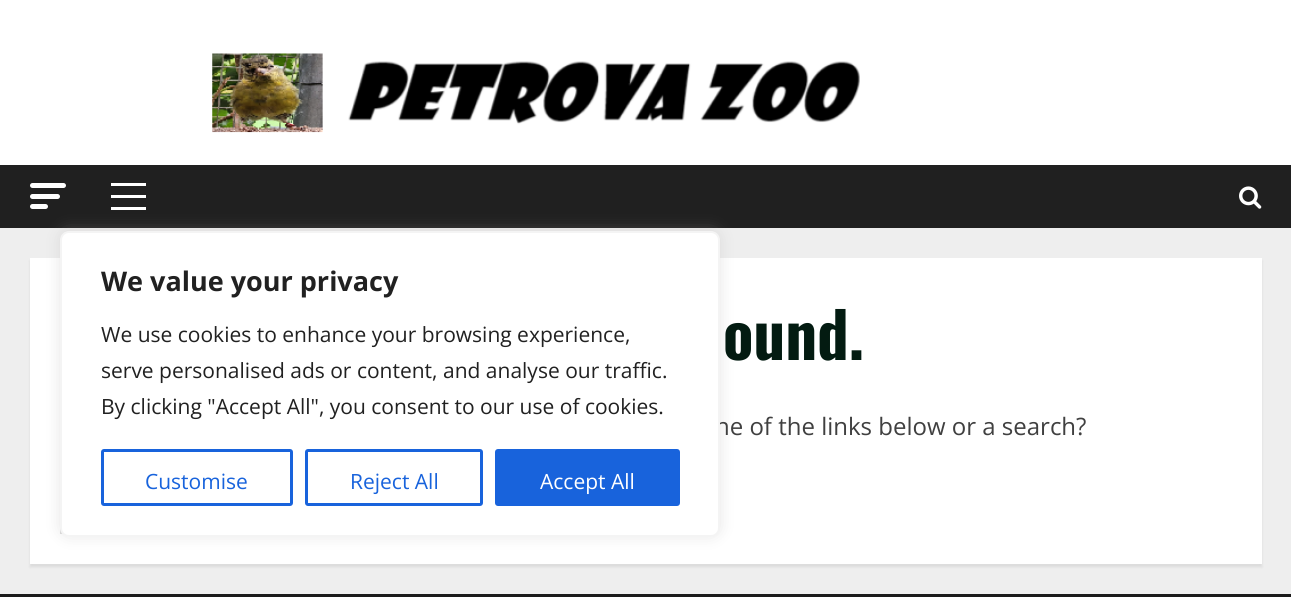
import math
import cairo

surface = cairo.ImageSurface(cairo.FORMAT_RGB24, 1291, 597)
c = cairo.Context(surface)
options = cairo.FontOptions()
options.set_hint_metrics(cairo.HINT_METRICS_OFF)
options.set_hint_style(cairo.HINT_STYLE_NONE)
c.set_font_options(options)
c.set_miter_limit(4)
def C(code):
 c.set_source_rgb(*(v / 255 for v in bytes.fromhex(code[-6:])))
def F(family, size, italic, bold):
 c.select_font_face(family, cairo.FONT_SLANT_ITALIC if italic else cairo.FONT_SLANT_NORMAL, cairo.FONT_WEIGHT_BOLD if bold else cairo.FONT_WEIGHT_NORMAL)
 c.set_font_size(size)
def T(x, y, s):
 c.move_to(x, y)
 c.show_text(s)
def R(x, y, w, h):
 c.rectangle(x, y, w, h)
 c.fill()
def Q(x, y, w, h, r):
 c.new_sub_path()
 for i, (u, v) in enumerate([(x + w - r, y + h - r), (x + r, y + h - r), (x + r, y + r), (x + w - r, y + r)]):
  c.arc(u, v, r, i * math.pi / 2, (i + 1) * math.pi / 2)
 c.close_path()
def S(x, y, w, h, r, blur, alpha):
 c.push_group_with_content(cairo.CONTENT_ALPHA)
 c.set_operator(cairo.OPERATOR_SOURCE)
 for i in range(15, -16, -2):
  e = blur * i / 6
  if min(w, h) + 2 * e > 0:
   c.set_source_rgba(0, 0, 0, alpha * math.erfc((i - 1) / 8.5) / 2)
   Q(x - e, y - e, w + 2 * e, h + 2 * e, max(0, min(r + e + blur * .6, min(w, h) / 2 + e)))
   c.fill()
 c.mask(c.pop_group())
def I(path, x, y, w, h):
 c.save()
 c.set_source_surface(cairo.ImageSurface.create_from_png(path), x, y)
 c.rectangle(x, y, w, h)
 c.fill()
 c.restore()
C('eeeeee')
c.paint()
C('202020')
R(0,165,1291,63)
C('ffffff')
Q(30,204,18,5,2.5)
c.fill()
R(111,207,35,3)
C('000000')
S(30,261,1232,306,0,1.5,.08)
C('ffffff')
R(30,258,1232,306)
c.rectangle(61,478,448,55)
C('dcdcdc')
c.stroke()
C('acabab')
S(60,230,660,306,9,7.5,.3)
F('Open Sans',24,0,0)
C('404040')
T(715,435,'ne of the links below or a search?')
C('ffffff')
Q(61,232,658,304,8)
c.fill_preserve()
C('f4f4f4')
c.stroke()
F('Open Sans',27,0,1)
C('212121')
T(101,291,'We value your privacy')
F('Open Sans',21,0,0)
T(101,342,'We use cookies to enhance your browsing experience,')
T(101,378,'serve personalised ads or content, and analyse our traffic.')
T(101,414,'By clicking "Accept All", you consent to our use of cookies.')
Q(102.5,450.5,189,54,1.5)
C('1863dc')
c.set_line_width(3)
c.stroke()
T(145,489,'Customise')
Q(306.5,450.5,175,54,1.5)
c.stroke()
T(350,489,'Reject All')
Q(496.5,450.5,182,54,1.5)
c.fill_preserve()
c.stroke()
C('ffffff')
T(540,489,'Accept All')
I('1.png',0,0,1291,165)
Q(30,183,36,5,2.5)
c.fill()
Q(30,194,30,5,2.5)
c.fill()
R(111,195,35,3)
R(111,183,35,3)
I('2.png',1239,186,23,23)
F('Oswald',63,0,1)
C('031b11')
T(723,360,'ound.')
C('1b1b1b')
R(0,594,1291,3)
surface.write_to_png('o.png')
